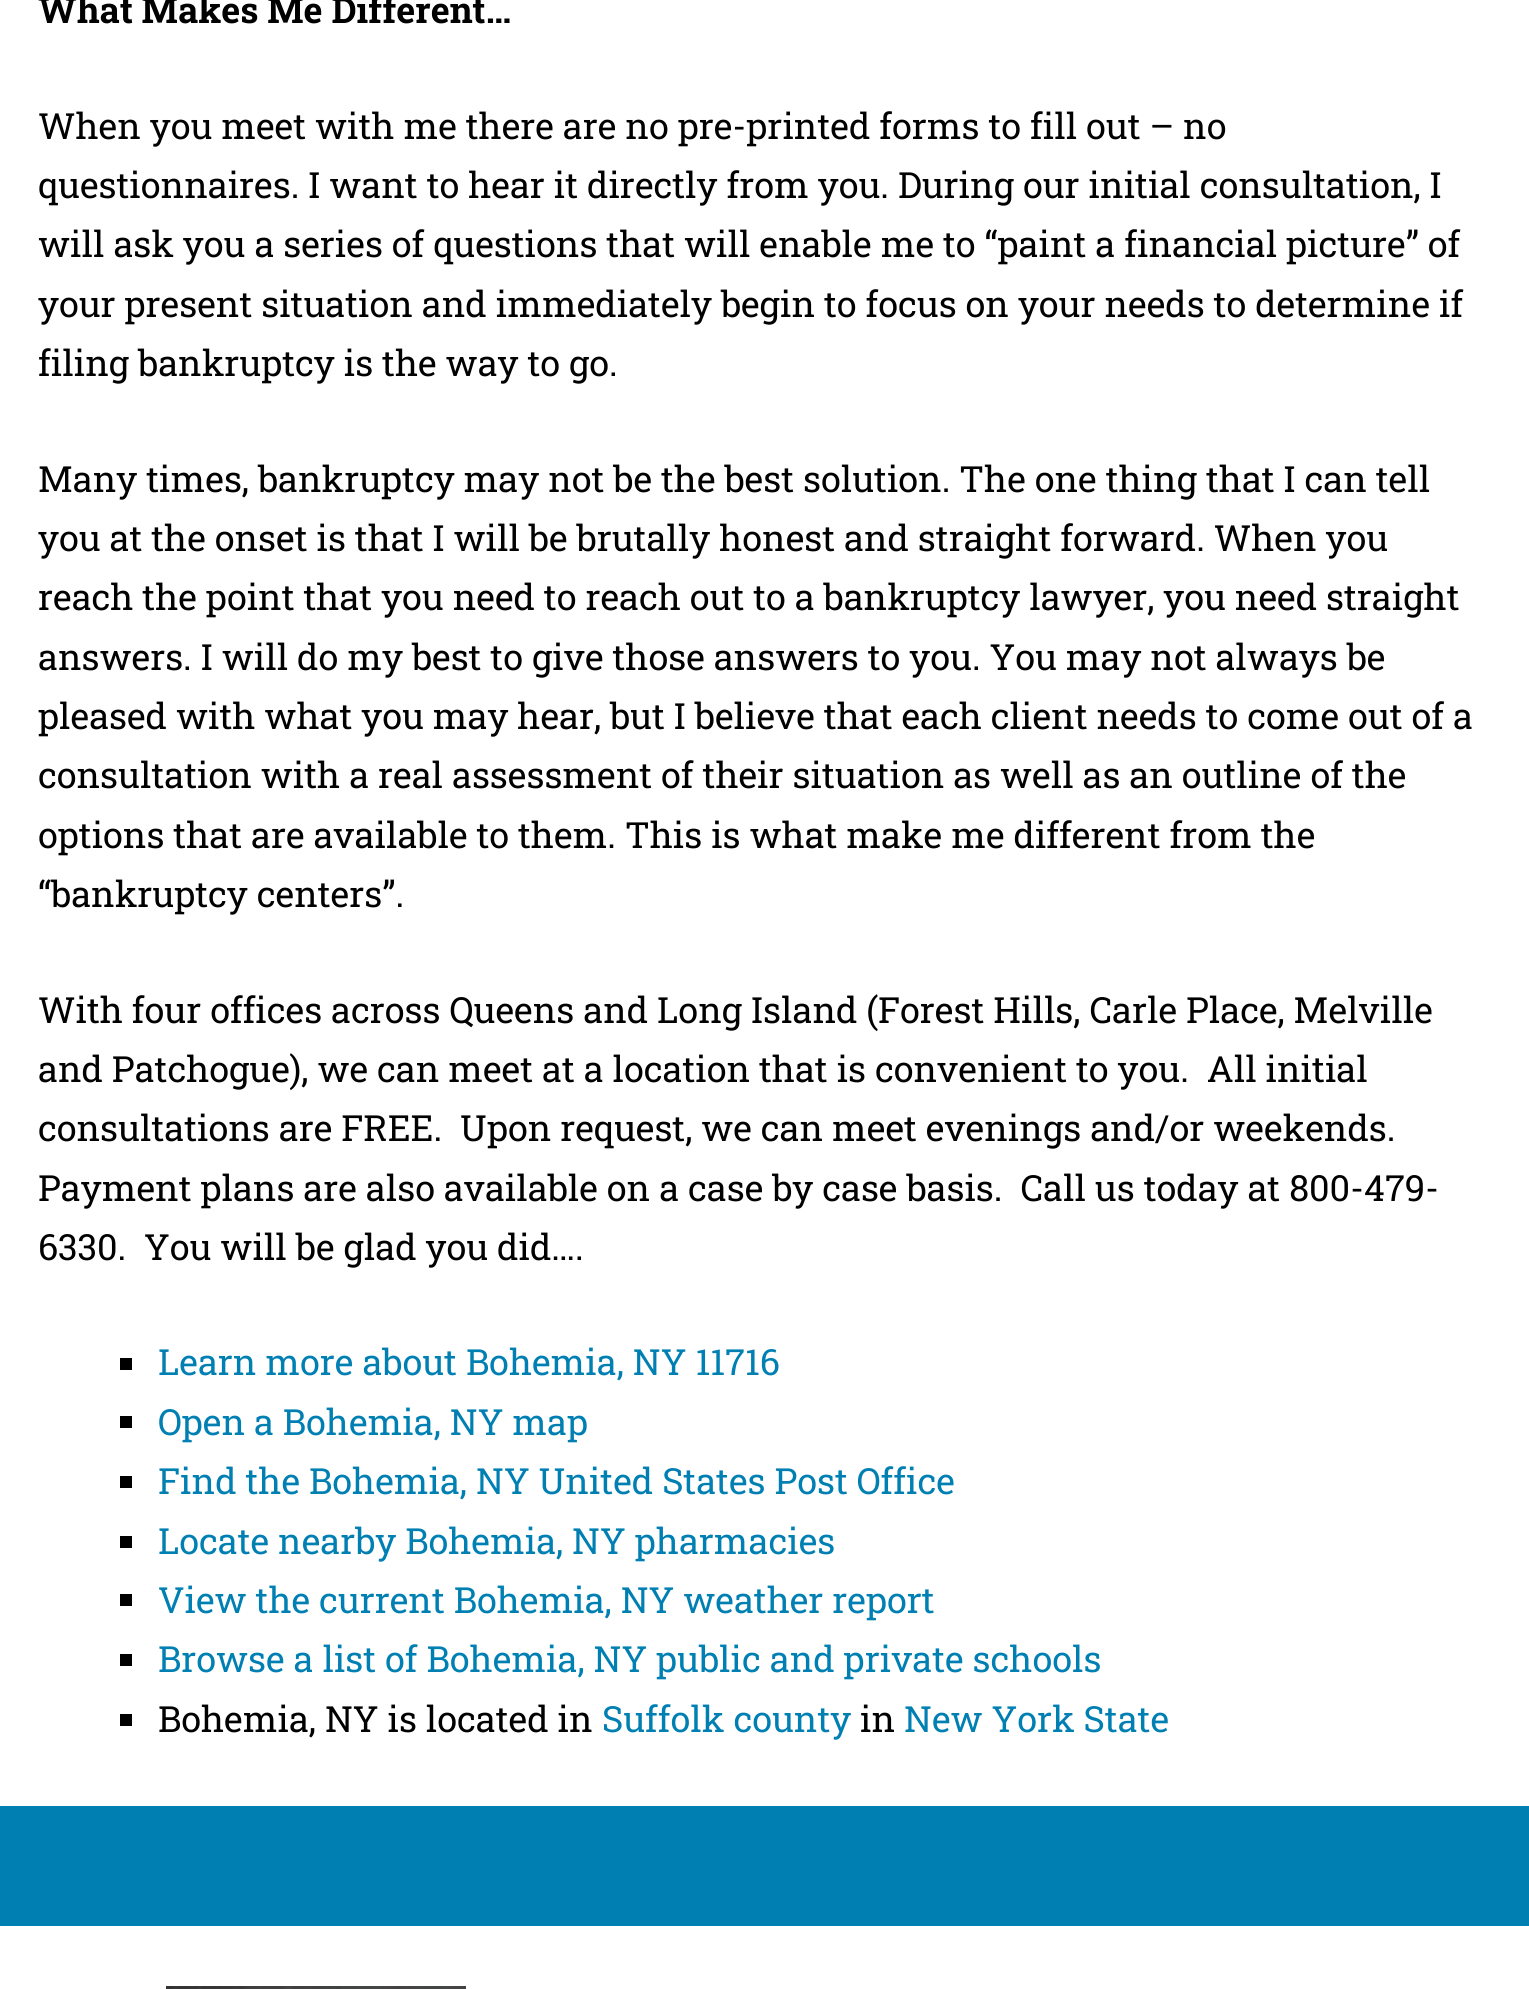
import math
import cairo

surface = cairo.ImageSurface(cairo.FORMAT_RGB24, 1529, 1989)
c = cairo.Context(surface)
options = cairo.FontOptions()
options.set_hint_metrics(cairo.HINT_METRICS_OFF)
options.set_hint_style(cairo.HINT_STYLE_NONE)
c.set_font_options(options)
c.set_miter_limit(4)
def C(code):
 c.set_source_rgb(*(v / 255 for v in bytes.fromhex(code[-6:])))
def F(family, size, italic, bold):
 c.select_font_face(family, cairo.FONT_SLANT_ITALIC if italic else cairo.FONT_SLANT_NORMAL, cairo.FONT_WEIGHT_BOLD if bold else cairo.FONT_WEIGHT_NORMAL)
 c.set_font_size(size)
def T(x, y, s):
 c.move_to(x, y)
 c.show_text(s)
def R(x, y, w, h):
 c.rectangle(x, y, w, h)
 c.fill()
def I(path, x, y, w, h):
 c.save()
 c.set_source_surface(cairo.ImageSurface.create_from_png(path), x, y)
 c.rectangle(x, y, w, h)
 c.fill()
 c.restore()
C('ffffff')
c.paint()
F('Roboto Slab',36,0,1)
C('000000')
T(38,23,'What Makes Me Different…')
F('Roboto Slab',36,0,0)
T(38,139,'When you meet with me there are no pre-printed forms to fill out – no')
T(38,198,'questionnaires. I want to hear it directly from you. During our initial consultation, I')
T(38,257,'will ask you a series of questions that will enable me to “paint a financial picture” of')
T(38,317,'your present situation and immediately begin to focus on your needs to determine if')
T(38,376,'filing bankruptcy is the way to go.')
T(38,492,'Many times, bankruptcy may not be the best solution. The one thing that I can tell')
T(38,551,'you at the onset is that I will be brutally honest and straight forward. When you')
T(38,610,'reach the point that you need to reach out to a bankruptcy lawyer, you need straight')
T(38,670,'answers. I will do my best to give those answers to you. You may not always be')
T(38,729,'pleased with what you may hear, but I believe that each client needs to come out of a')
T(38,788,'consultation with a real assessment of their situation as well as an outline of the')
T(38,848,'options that are available to them. This is what make me different from the')
T(38,907,'“bankruptcy centers”.')
T(38,1023,'With four offices across Queens and Long Island (Forest Hills, Carle Place, Melville')
T(38,1082,'and Patchogue), we can meet at a location that is convenient to you.  All initial')
T(38,1141,'consultations are FREE.  Upon request, we can meet evenings and/or weekends.')
T(38,1201,'Payment plans are also available on a case by case basis.  Call us today at 800-479-')
T(38,1260,'6330.  You will be glad you did….')
R(120,1358,12,12)
C('007fb3')
T(158,1375,'Learn more about Bohemia, NY 11716')
C('000000')
R(120,1416,12,12)
C('007fb3')
T(158,1435,'Open a Bohemia, NY map')
C('000000')
R(120,1476,12,12)
C('007fb3')
T(158,1494,'Find the Bohemia, NY United States Post Office')
C('000000')
R(120,1536,12,12)
C('007fb3')
T(158,1554,'Locate nearby Bohemia, NY pharmacies')
C('000000')
R(120,1594,12,12)
C('007fb3')
T(158,1613,'View the current Bohemia, NY weather report')
C('000000')
R(120,1654,12,12)
C('007fb3')
T(158,1672,'Browse a list of Bohemia, NY public and private schools')
C('000000')
R(120,1714,12,12)
T(158,1732,'Bohemia, NY is located in')
C('007fb3')
T(602,1732,'Suffolk county')
C('000000')
T(860,1732,'in')
C('007fb3')
T(904,1732,'New York State')
R(0,1806,1529,120)
I('1.png',166,1986,300,3)
surface.write_to_png('o.png')
